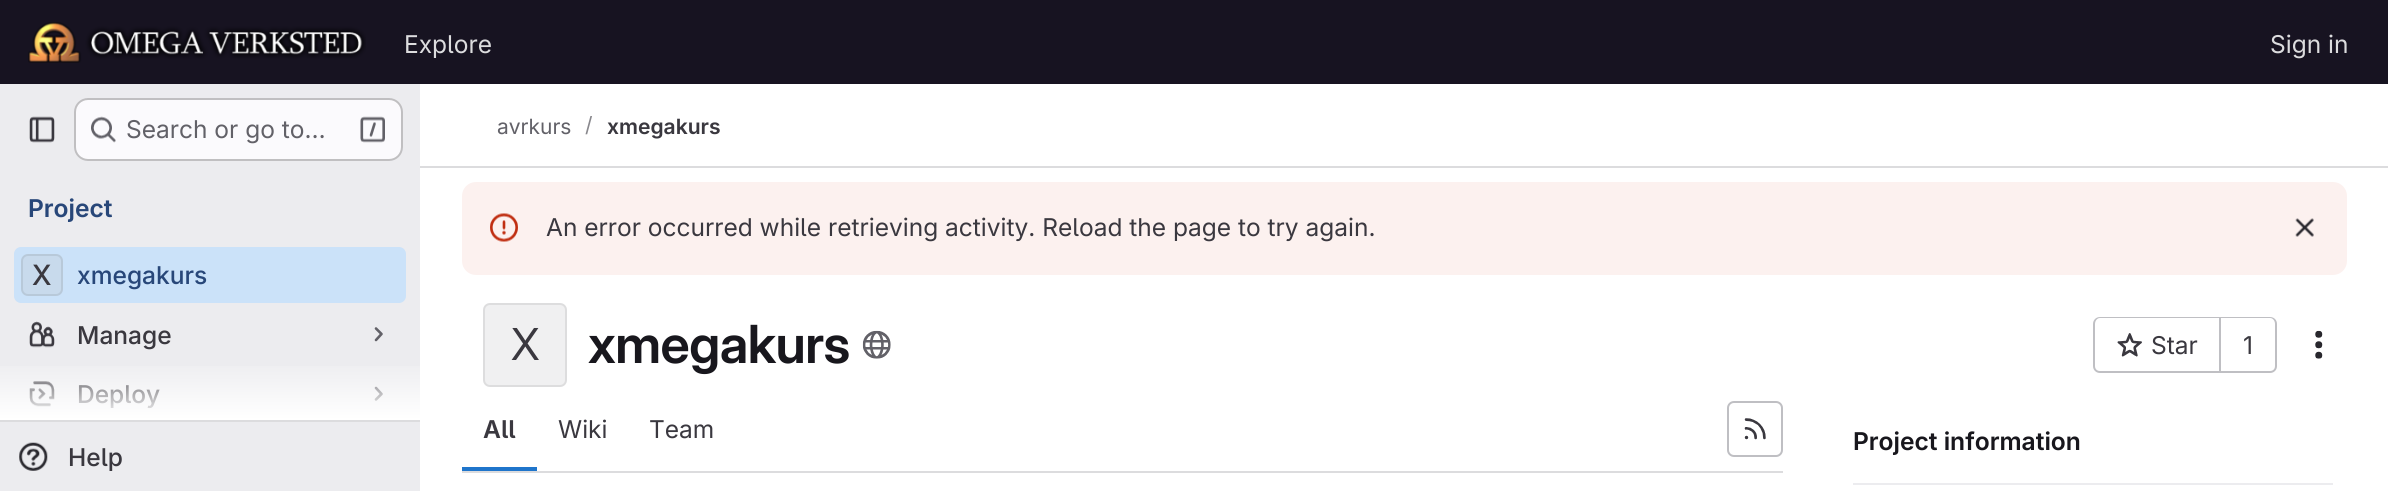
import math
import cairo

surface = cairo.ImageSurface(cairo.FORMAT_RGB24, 2388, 491)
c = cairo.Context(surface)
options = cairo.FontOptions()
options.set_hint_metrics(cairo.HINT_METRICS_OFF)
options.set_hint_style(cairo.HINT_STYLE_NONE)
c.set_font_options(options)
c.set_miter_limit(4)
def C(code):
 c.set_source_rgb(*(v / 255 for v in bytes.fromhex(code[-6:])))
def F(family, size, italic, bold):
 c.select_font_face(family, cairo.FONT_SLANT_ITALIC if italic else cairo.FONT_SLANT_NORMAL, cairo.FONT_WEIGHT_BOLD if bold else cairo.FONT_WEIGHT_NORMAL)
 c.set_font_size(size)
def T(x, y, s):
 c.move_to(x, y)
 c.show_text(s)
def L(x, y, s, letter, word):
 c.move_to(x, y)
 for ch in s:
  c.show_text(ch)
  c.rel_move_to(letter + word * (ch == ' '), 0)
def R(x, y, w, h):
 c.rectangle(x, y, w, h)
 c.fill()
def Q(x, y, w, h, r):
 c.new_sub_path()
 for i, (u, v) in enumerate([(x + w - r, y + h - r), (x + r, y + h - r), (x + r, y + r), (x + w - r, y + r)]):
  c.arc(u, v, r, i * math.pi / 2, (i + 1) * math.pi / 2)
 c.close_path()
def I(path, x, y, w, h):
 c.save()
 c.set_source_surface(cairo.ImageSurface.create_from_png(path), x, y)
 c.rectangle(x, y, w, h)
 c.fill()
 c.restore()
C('ffffff')
c.paint()
C('171321')
R(0,0,2388,84)
I('1.png',28,22,338,41)
F('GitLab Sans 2',24.5,0,0)
C('dcdcde')
T(404,53,'Explore')
T(2270,53,'Sign in')
C('ececef')
R(0,84,420,407)
I('2.png',29,116,26,27)
C('fbfafd')
Q(74,98,329,63,14)
c.fill()
Q(75,99,327,61,13)
c.set_source_rgba(0.02,0.02,0.024,0.24)
c.stroke()
I('3.png',91,116,25,27)
C('626168')
T(126,138,'Search or go to…')
I('4.png',360,116,25,27)
F('GitLab Sans 2 SemiBold',24.5,0,0)
C('284779')
T(28,217,'Project')
C('dcdcde')
R(0,420,420,2)
C('cbe2f9')
Q(14,247,392,56,7)
c.fill()
C('c8daec')
Q(21,254,42,42,7)
c.fill()
Q(22,255,40,40,6)
c.set_source_rgba(0.02,0.02,0.024,0.08)
c.stroke()
F('GitLab Sans 2 Medium',28,0,0)
C('3a383f')
T(32,285,'X')
F('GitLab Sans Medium',24.5,0,0)
C('284779')
T(77,284,'xmegakurs')
I('5.png',29,321,26,27)
C('3a383f')
T(77,344,'Manage')
c.new_path()
c.move_to(376,328.5)
c.line_to(381.5,334)
c.line_to(376,340)
C('626168')
c.set_line_width(2.6)
c.set_line_cap(cairo.LINE_CAP_ROUND)
c.set_line_join(cairo.LINE_JOIN_ROUND)
c.stroke()
I('6.png',29,381,26,26)
C('3a383f')
T(77,403,'Deploy')
c.new_path()
c.move_to(376,388)
c.line_to(381.5,394)
c.line_to(376,399.5)
C('626168')
c.stroke()
gradient = cairo.LinearGradient(210,357,210,420)
gradient.add_color_stop_rgba(0,1,1,1,0)
gradient.add_color_stop_rgba(1,1,1,1,1)
c.set_source(gradient)
R(0,366,420,54)
I('7.png',19,442,29,29)
C('3a383f')
T(68,466,'Help')
C('dcdcde')
R(420,166,1968,2)
F('GitLab Sans 2',21,0,0)
C('626168')
T(497,134,'avrkurs')
C('89888d')
T(585,132,'/')
F('GitLab Sans 2 SemiBold',21,0,0)
C('3a383f')
T(607,134,'xmegakurs')
C('fcf1ef')
Q(462,182,1885,93,14)
c.fill()
I('8.png',490,213,28,29)
F('GitLab Sans 2',24.5,0,0)
C('3a383f')
T(546,236,'An error occurred while retrieving activity. Reload the page to try again.')
I('9.png',2295,218,19,19)
C('f0f0f1')
Q(483,303,84,84,7)
c.fill()
Q(484,304,82,82,6)
c.set_source_rgba(0.02,0.02,0.024,0.08)
c.set_line_width(2)
c.set_line_cap(cairo.LINE_CAP_BUTT)
c.set_line_join(cairo.LINE_JOIN_MITER)
c.stroke()
F('GitLab Sans',44,0,0)
C('3a383f')
T(511,360,'X')
F('GitLab Sans SemiBold',52.5,0,0)
C('18171d')
L(588,363,'xmegakurs',-.5,0)
I('10.png',862,330,29,29)
C('bfbfc3')
c.set_fill_rule(cairo.FILL_RULE_EVEN_ODD)
c.new_path()
c.move_to(2100,317)
c.line_to(2219,317)
c.line_to(2219,373)
c.line_to(2100,373)
c.curve_to(2096,373,2093,370,2093,366)
c.line_to(2093,324)
c.curve_to(2093,320,2096,317,2100,317)
c.close_path()
c.move_to(2100,318)
c.line_to(2219,318)
c.line_to(2219,371)
c.line_to(2100,371)
c.curve_to(2097,371,2095,369,2095,366)
c.line_to(2095,324)
c.curve_to(2095,321,2097,318,2100,318)
c.close_path()
c.fill()
I('11.png',2117,333,25,24)
F('GitLab Sans 2',24.5,0,0)
C('3a383f')
T(2151,354,'Star')
C('bfbfc3')
c.new_path()
c.move_to(2221,317)
c.line_to(2270,317)
c.curve_to(2274,317,2277,320,2277,324)
c.line_to(2277,366)
c.curve_to(2277,370,2274,373,2270,373)
c.line_to(2221,373)
c.close_path()
c.move_to(2221,318)
c.line_to(2270,318)
c.curve_to(2273,318,2275,321,2275,324)
c.line_to(2275,366)
c.curve_to(2275,369,2273,371,2270,371)
c.line_to(2221,371)
c.close_path()
c.fill()
R(2219,317,2,56)
C('3a383f')
T(2243,354,'1')
I('12.png',2315,330,8,29)
C('dcdcde')
R(462,471,1321,2)
C('1f75cb')
R(462,467,75,4)
F('GitLab Sans 2 SemiBold',24.5,0,0)
C('3a383f')
T(483,438,'All')
F('GitLab Sans 2',24.5,0,0)
T(558,438,'Wiki')
T(649,438,'Team')
Q(1728,402,54,54,6)
C('bfbfc3')
c.stroke()
I('13.png',1744,418,22,22)
C('ececef')
R(1853,483,480,2)
F('GitLab Sans 2 SemiBold',24.5,0,0)
C('18171d')
T(1853,450,'Project information')
surface.write_to_png('o.png')
